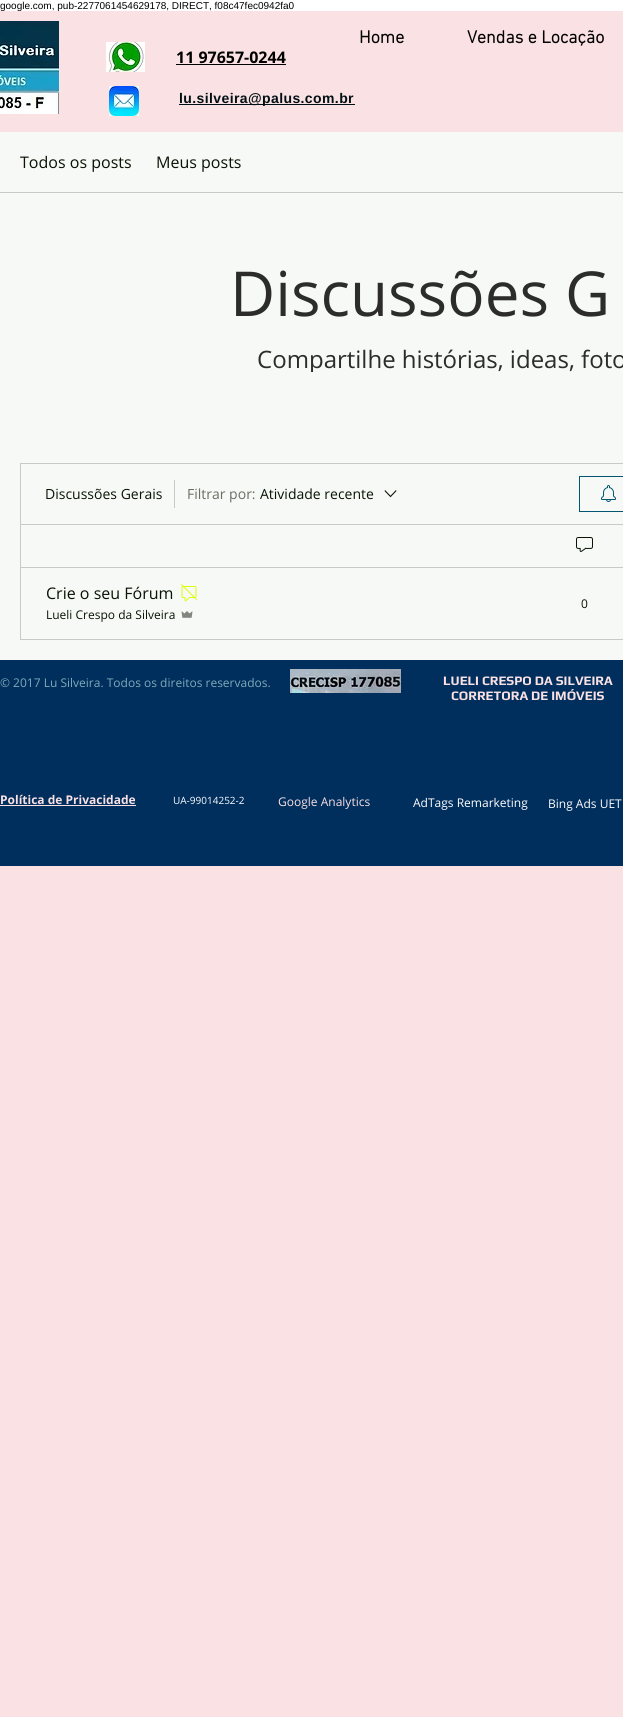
import math
import cairo

surface = cairo.ImageSurface(cairo.FORMAT_RGB24, 623, 1717)
c = cairo.Context(surface)
options = cairo.FontOptions()
options.set_hint_metrics(cairo.HINT_METRICS_OFF)
options.set_hint_style(cairo.HINT_STYLE_NONE)
c.set_font_options(options)
c.set_miter_limit(4)
def C(code):
 c.set_source_rgb(*(v / 255 for v in bytes.fromhex(code[-6:])))
def F(family, size, italic, bold):
 c.select_font_face(family, cairo.FONT_SLANT_ITALIC if italic else cairo.FONT_SLANT_NORMAL, cairo.FONT_WEIGHT_BOLD if bold else cairo.FONT_WEIGHT_NORMAL)
 c.set_font_size(size)
def T(x, y, s):
 c.move_to(x, y)
 c.show_text(s)
def L(x, y, s, letter, word):
 c.move_to(x, y)
 for ch in s:
  c.show_text(ch)
  c.rel_move_to(letter + word * (ch == ' '), 0)
def R(x, y, w, h):
 c.rectangle(x, y, w, h)
 c.fill()
def I(path, x, y, w, h):
 c.save()
 c.set_source_surface(cairo.ImageSurface.create_from_png(path), x, y)
 c.rectangle(x, y, w, h)
 c.fill()
 c.restore()
C('ffffff')
c.paint()
F('Liberation Sans',10,0,0)
C('000000')
T(0,9,'google.com, pub-2277061454629178, DIRECT, f08c47fec0942fa0')
C('fae1e3')
R(0,11,623,1706)
I('1.png',0,21,59,93)
F('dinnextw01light',18,0,1)
C('000000')
T(359,43,'Home')
T(467,43,'Vendas e Locação')
I('2.png',106,42,39,30)
F('Open Sans',16,0,1)
T(176,63,'11 97657-0244')
R(176,64,110,1)
I('3.png',109,86,30,30)
C('011014')
R(179,104,176,1)
F('Liberation Sans',14,0,1)
L(179,103,'lu.silveira@palus.com.br',.4,0)
C('f6f9f5')
R(0,132,623,528)
C('c7cbc5')
R(0,192,623,1)
F('Open Sans',16,0,0)
C('091405')
T(20,168,'Todos os posts')
T(156,168,'Meus posts')
F('Open Sans',62,0,0)
C('2c2c2b')
T(230,316,'Discussões G')
c.save()
c.rectangle(150,346,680,26)
c.clip()
F('Open Sans',24,0,0)
T(257,368,'Compartilhe histórias, ideas, foto')
c.restore()
c.rectangle(20.5,463.5,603,176)
C('c7cbc5')
c.set_line_width(1)
c.stroke()
F('Open Sans',14,0,0)
C('091405')
T(45,499,'Discussões Gerais')
C('c7cbc5')
R(174,480,1,28)
C('687065')
T(187,499,'Filtrar por:')
C('091405')
T(260,499,'Atividade recente')
I('4.png',384,490,13,8)
c.rectangle(579.5,476.5,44,35)
C('035772')
c.stroke()
I('5.png',601,485,15,17)
C('c7cbc5')
R(21,524,602,1)
I('6.png',576,537,17,15)
R(21,567,602,1)
F('Open Sans',16,0,0)
C('091405')
T(46,599,'Crie o seu Fórum')
I('7.png',181,584,16,18)
F('Open Sans',12,0,0)
T(46,619,'Lueli Crespo da Silveira')
I('8.png',181,611,12,7)
T(581,608,'0')
C('002e5d')
R(0,660,623,206)
C('7daab9')
T(0,687,'© 2017 Lu Silveira. Todos os direitos reservados.')
I('9.png',290,669,111,24)
F('Play',13,0,1)
C('fae1e3')
T(443,685,'LUELI CRESPO DA SILVEIRA')
T(451,700,'CORRETORA DE IMÓVEIS')
F('Open Sans',12,0,1)
T(0,804,'Política de Privacidade')
R(0,805,136,1)
F('Open Sans',10,0,0)
C('ffffff')
T(173,804,'UA-99014252-2')
F('Open Sans',12,0,0)
C('fae1e3')
T(278,806,'Google Analytics')
C('ffffff')
T(413,807,'AdTags Remarketing')
T(548,808,'Bing Ads UET')
surface.write_to_png('o.png')
